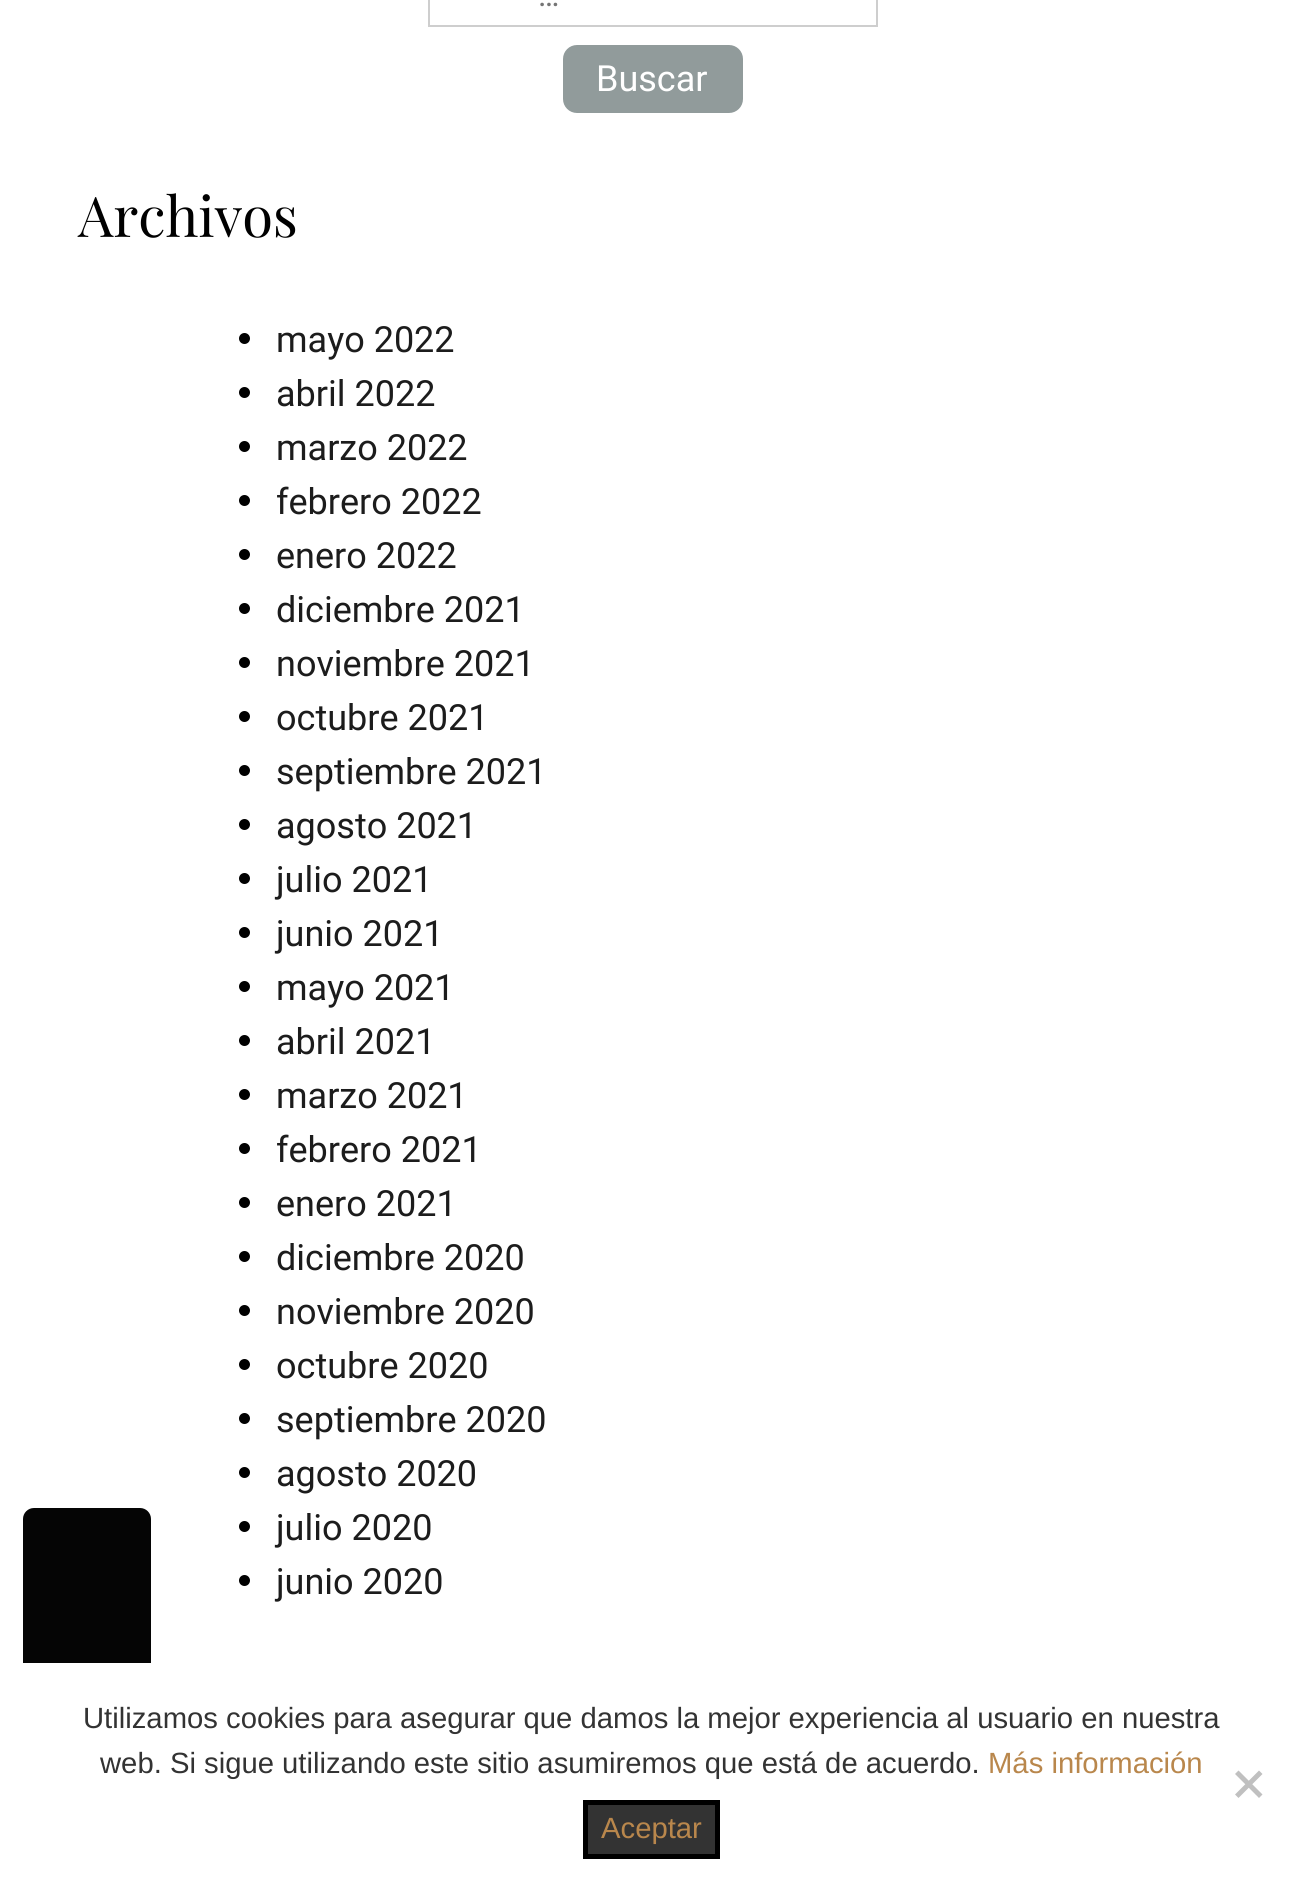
import math
import cairo

surface = cairo.ImageSurface(cairo.FORMAT_RGB24, 1301, 1903)
c = cairo.Context(surface)
options = cairo.FontOptions()
options.set_hint_metrics(cairo.HINT_METRICS_OFF)
options.set_hint_style(cairo.HINT_STYLE_NONE)
c.set_font_options(options)
c.set_miter_limit(4)
def C(code):
 c.set_source_rgb(*(v / 255 for v in bytes.fromhex(code[-6:])))
def F(family, size, italic, bold):
 c.select_font_face(family, cairo.FONT_SLANT_ITALIC if italic else cairo.FONT_SLANT_NORMAL, cairo.FONT_WEIGHT_BOLD if bold else cairo.FONT_WEIGHT_NORMAL)
 c.set_font_size(size)
def T(x, y, s):
 c.move_to(x, y)
 c.show_text(s)
def R(x, y, w, h):
 c.rectangle(x, y, w, h)
 c.fill()
def Q(x, y, w, h, r):
 c.new_sub_path()
 for i, (u, v) in enumerate([(x + w - r, y + h - r), (x + r, y + h - r), (x + r, y + r), (x + w - r, y + r)]):
  c.arc(u, v, r, i * math.pi / 2, (i + 1) * math.pi / 2)
 c.close_path()
C('ffffff')
c.paint()
c.rectangle(429,-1,448,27)
C('cecece')
c.stroke()
F('Roboto',32,0,0)
C('757575')
T(538,6,'…')
C('919b9b')
Q(563,45,180,68,14)
c.fill()
F('Roboto',36,0,0)
C('ffffff')
T(596,91,'Buscar')
F('Playfair Display',56,0,0)
C('000000')
T(78,237,'Archivos')
c.new_path()
c.arc(244.5,338.5,5.5,0,2 * math.pi)
c.fill()
F('Roboto',36,0,0)
C('1c1c1c')
T(276,352,'mayo 2022')
C('000000')
c.new_path()
c.arc(244.5,392.5,5.5,0,2 * math.pi)
c.fill()
C('1c1c1c')
T(276,406,'abril 2022')
C('000000')
c.new_path()
c.arc(244.5,446.5,5.5,0,2 * math.pi)
c.fill()
C('1c1c1c')
T(276,460,'marzo 2022')
C('000000')
c.new_path()
c.arc(244.5,500.5,5.5,0,2 * math.pi)
c.fill()
C('1c1c1c')
T(276,514,'febrero 2022')
C('000000')
c.new_path()
c.arc(244.5,554.5,5.5,0,2 * math.pi)
c.fill()
C('1c1c1c')
T(276,568,'enero 2022')
C('000000')
c.new_path()
c.arc(244.5,608.5,5.5,0,2 * math.pi)
c.fill()
C('1c1c1c')
T(276,622,'diciembre 2021')
C('000000')
c.new_path()
c.arc(244.5,662.5,5.5,0,2 * math.pi)
c.fill()
C('1c1c1c')
T(276,676,'noviembre 2021')
C('000000')
c.new_path()
c.arc(244.5,716.5,5.5,0,2 * math.pi)
c.fill()
C('1c1c1c')
T(276,730,'octubre 2021')
C('000000')
c.new_path()
c.arc(244.5,770.5,5.5,0,2 * math.pi)
c.fill()
C('1c1c1c')
T(276,784,'septiembre 2021')
C('000000')
c.new_path()
c.arc(244.5,824.5,5.5,0,2 * math.pi)
c.fill()
C('1c1c1c')
T(276,838,'agosto 2021')
C('000000')
c.new_path()
c.arc(244.5,878.5,5.5,0,2 * math.pi)
c.fill()
C('1c1c1c')
T(276,892,'julio 2021')
C('000000')
c.new_path()
c.arc(244.5,932.5,5.5,0,2 * math.pi)
c.fill()
C('1c1c1c')
T(276,946,'junio 2021')
C('000000')
c.new_path()
c.arc(244.5,986.5,5.5,0,2 * math.pi)
c.fill()
C('1c1c1c')
T(276,1000,'mayo 2021')
C('000000')
c.new_path()
c.arc(244.5,1040.5,5.5,0,2 * math.pi)
c.fill()
C('1c1c1c')
T(276,1054,'abril 2021')
C('000000')
c.new_path()
c.arc(244.5,1094.5,5.5,0,2 * math.pi)
c.fill()
C('1c1c1c')
T(276,1108,'marzo 2021')
C('000000')
c.new_path()
c.arc(244.5,1148.5,5.5,0,2 * math.pi)
c.fill()
C('1c1c1c')
T(276,1162,'febrero 2021')
C('000000')
c.new_path()
c.arc(244.5,1202.5,5.5,0,2 * math.pi)
c.fill()
C('1c1c1c')
T(276,1216,'enero 2021')
C('000000')
c.new_path()
c.arc(244.5,1256.5,5.5,0,2 * math.pi)
c.fill()
C('1c1c1c')
T(276,1270,'diciembre 2020')
C('000000')
c.new_path()
c.arc(244.5,1310.5,5.5,0,2 * math.pi)
c.fill()
C('1c1c1c')
T(276,1324,'noviembre 2020')
C('000000')
c.new_path()
c.arc(244.5,1364.5,5.5,0,2 * math.pi)
c.fill()
C('1c1c1c')
T(276,1378,'octubre 2020')
C('000000')
c.new_path()
c.arc(244.5,1418.5,5.5,0,2 * math.pi)
c.fill()
C('1c1c1c')
T(276,1432,'septiembre 2020')
C('000000')
c.new_path()
c.arc(244.5,1472.5,5.5,0,2 * math.pi)
c.fill()
C('1c1c1c')
T(276,1486,'agosto 2020')
C('000000')
c.new_path()
c.arc(244.5,1526.5,5.5,0,2 * math.pi)
c.fill()
C('1c1c1c')
T(276,1540,'julio 2020')
C('000000')
c.new_path()
c.arc(244.5,1580.5,5.5,0,2 * math.pi)
c.fill()
C('1c1c1c')
T(276,1594,'junio 2020')
c.set_source_rgba(0,0,0,0.98)
Q(23,1508,128,373,11)
c.fill()
C('ffffff')
R(23,1663,128,218)
F('Liberation Sans',29.25,0,0)
C('333333')
T(83,1728,'Utilizamos cookies para asegurar que damos la mejor experiencia al usuario en nuestra')
T(100,1773,'web. Si sigue utilizando este sitio asumiremos que está de acuerdo.')
C('b9874c')
T(988,1773,'Más información')
C('c0c0c0')
c.new_path()
c.move_to(1259,1770.5)
c.line_to(1262.5,1774)
c.line_to(1238.5,1798)
c.line_to(1235,1794.5)
c.close_path()
c.fill()
c.new_path()
c.move_to(1235,1774)
c.line_to(1238.5,1770.5)
c.line_to(1262.5,1794.5)
c.line_to(1259,1798)
c.close_path()
c.fill()
C('333333')
c.rectangle(585.5,1802.5,132,54)
c.fill_preserve()
C('000000')
c.set_line_width(5)
c.stroke()
C('b9874c')
T(601,1838,'Aceptar')
surface.write_to_png('o.png')
